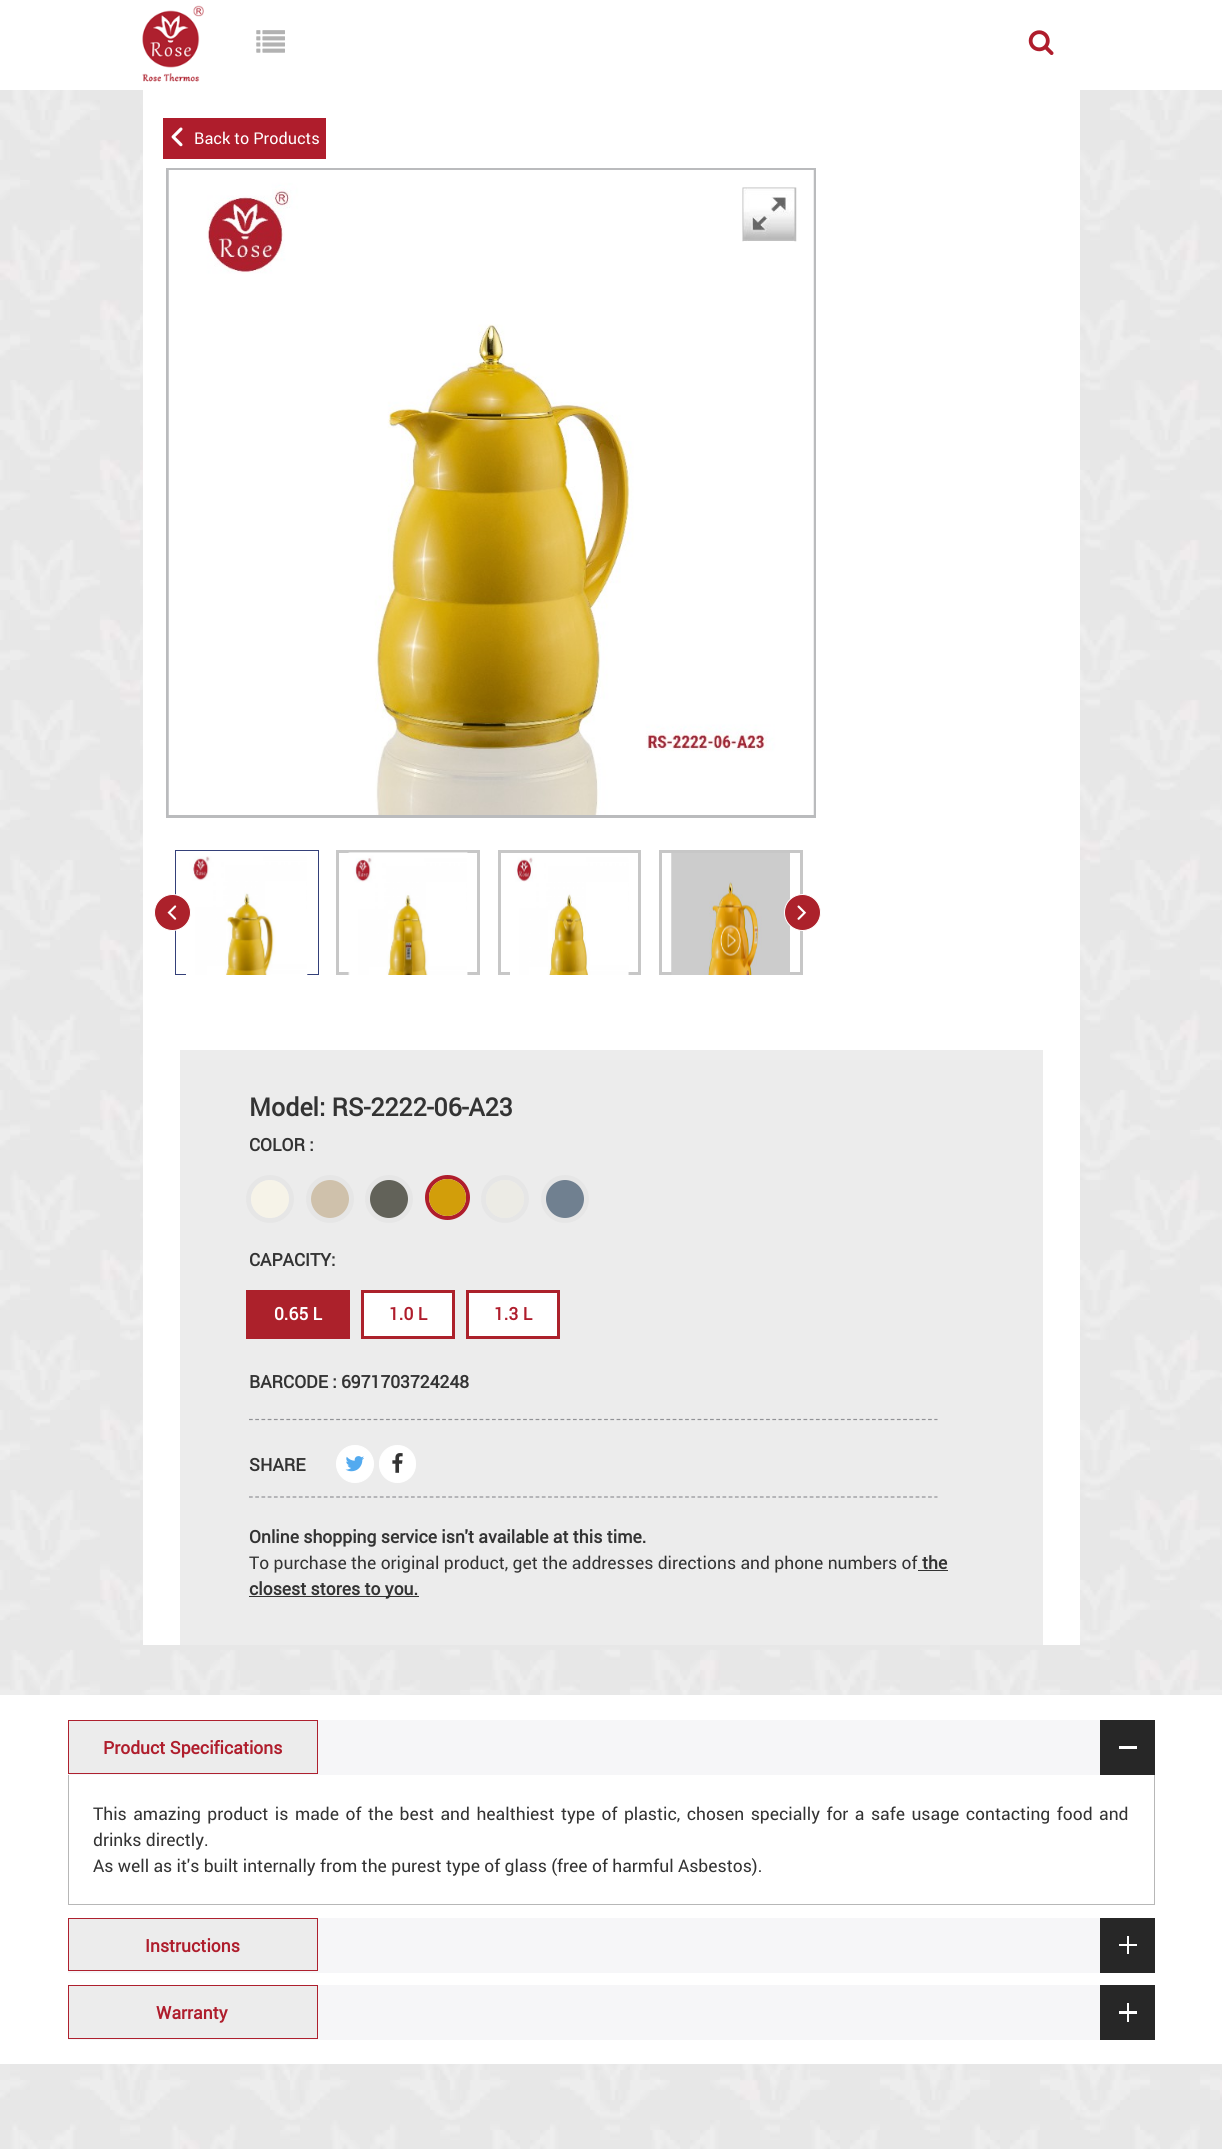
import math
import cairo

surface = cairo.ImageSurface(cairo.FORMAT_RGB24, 1222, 2149)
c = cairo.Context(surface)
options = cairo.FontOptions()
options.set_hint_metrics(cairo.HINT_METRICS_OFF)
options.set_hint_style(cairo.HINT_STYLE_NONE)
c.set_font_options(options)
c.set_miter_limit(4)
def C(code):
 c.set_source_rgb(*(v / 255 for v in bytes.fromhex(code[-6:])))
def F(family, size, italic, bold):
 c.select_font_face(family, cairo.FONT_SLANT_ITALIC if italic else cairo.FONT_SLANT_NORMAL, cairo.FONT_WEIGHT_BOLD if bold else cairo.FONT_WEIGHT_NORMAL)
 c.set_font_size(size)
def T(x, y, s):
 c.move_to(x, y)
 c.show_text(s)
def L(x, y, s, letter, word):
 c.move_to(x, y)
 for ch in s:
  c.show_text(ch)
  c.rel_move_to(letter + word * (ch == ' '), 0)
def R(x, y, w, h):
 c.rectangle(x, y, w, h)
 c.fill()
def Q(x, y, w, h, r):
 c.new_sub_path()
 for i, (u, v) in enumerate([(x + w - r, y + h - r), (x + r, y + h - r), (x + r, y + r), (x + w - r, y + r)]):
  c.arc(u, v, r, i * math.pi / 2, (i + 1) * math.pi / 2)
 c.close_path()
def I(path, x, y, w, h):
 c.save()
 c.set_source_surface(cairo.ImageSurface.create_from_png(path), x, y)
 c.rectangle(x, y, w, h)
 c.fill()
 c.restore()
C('ffffff')
c.paint()
I('1.png',0,90,1222,2059)
I('2.png',142,5,62,77)
I('3.png',256,30,29,23)
I('4.png',1028,30,26,25)
C('ffffff')
R(143,90,937,1555)
C('af1d2c')
R(163,118,163,41)
I('5.png',171,127,12,20)
F('Roboto',16.25,0,0)
C('ffffff')
T(194,144,'Back to Products')
c.rectangle(167.5,169.5,647,647)
C('babbbd')
c.set_line_width(3)
c.stroke()
I('6.png',168,170,646,645)
I('7.png',742,187,55,55)
c.rectangle(175.5,850.5,143,124)
C('344079')
c.set_line_width(1)
c.stroke()
I('8.png',186,856,122,119)
c.rectangle(337.5,851.5,141,122)
C('c7c7c7')
c.set_line_width(3)
c.stroke()
I('9.png',348,852,120,123)
c.rectangle(499.5,851.5,140,122)
c.stroke()
I('10.png',510,857,119,118)
c.rectangle(660.5,851.5,141,122)
c.stroke()
I('11.png',671,853,119,122)
C('ac212b')
c.arc(172.5,912.5,18,0,2 * math.pi)
c.fill_preserve()
C('ffffff')
c.set_line_width(1)
c.stroke()
I('12.png',167,905,10,15)
C('ac212b')
c.arc(802.5,912.5,18,0,2 * math.pi)
c.fill_preserve()
C('ffffff')
c.stroke()
I('13.png',797,905,10,15)
C('ececec')
R(180,1050,863,595)
F('Roboto',25,0,1)
C('333333')
T(249,1116,'Model: RS-2222-06-A23')
F('Roboto',17.5,0,1)
T(249,1151,'COLOR :')
c.new_path()
c.arc(270,1199,21.5,0,2 * math.pi)
C('e6e6e6')
c.set_line_width(5)
c.stroke()
C('f6f3e8')
c.arc(270,1199,19,0,2 * math.pi)
c.fill()
c.arc(330,1199,21.5,0,2 * math.pi)
C('e6e6e6')
c.stroke()
C('cfc1ab')
c.arc(330,1199,19,0,2 * math.pi)
c.fill()
c.arc(389,1199,21.5,0,2 * math.pi)
C('e6e6e6')
c.stroke()
C('626259')
c.arc(389,1199,19,0,2 * math.pi)
c.fill()
c.arc(447.5,1197.5,20.5,0,2 * math.pi)
C('af1d2c')
c.set_line_width(4)
c.stroke()
C('d29e0a')
c.arc(447.5,1197.5,18.5,0,2 * math.pi)
c.fill()
c.arc(505,1199,21.5,0,2 * math.pi)
C('e6e6e6')
c.set_line_width(5)
c.stroke()
C('ecebe5')
c.arc(505,1199,19,0,2 * math.pi)
c.fill()
c.arc(565,1199,21.5,0,2 * math.pi)
C('e6e6e6')
c.stroke()
C('708090')
c.arc(565,1199,19,0,2 * math.pi)
c.fill()
C('333333')
T(249,1266,'CAPACITY:')
C('ac212b')
R(246,1290,104,49)
C('ffffff')
T(274,1320,'0.65 L')
c.rectangle(362.5,1291.5,91,46)
c.fill_preserve()
C('ac212b')
c.set_line_width(3)
c.stroke()
C('af1d2c')
T(389,1320,'1.0 L')
C('ffffff')
c.rectangle(467.5,1291.5,91,46)
c.fill_preserve()
C('ac212b')
c.stroke()
C('af1d2c')
T(494,1320,'1.3 L')
C('333333')
T(249,1388,'BARCODE : 6971703724248')
c.new_path()
c.move_to(249,1419.5)
c.line_to(937.5,1419.5)
C('919296')
c.set_line_width(1.2)
c.set_dash([3.75,2.48])
c.stroke()
C('333333')
T(249,1471,'SHARE')
C('ffffff')
c.new_path()
c.arc(355,1464,18.5,0,2 * math.pi)
c.fill_preserve()
c.set_line_width(1)
c.set_dash([])
c.stroke()
I('14.png',345,1456,19,16)
Q(379.5,1445.5,36,37,18)
c.fill_preserve()
c.stroke()
I('15.png',392,1453,11,20)
c.new_path()
c.move_to(249,1497)
c.line_to(937.5,1497)
C('919296')
c.set_line_width(1.2)
c.set_dash([3.75,2.48])
c.stroke()
C('333333')
T(249,1543,'Online shopping service isn\'t available at this time.')
F('Roboto',17.5,0,0)
T(249,1569,'To purchase the original product, get the addresses directions and phone numbers of')
F('Roboto',17.5,0,1)
T(922,1569,'the')
R(918,1570,30,1)
R(249,1596,170,1)
T(249,1595,'closest stores to you.')
C('ffffff')
R(0,1695,1222,369)
C('f6f6f8')
R(68,1720,1032,55)
C('ececec')
c.rectangle(68.5,1720.5,249,53)
c.fill_preserve()
C('ae202e')
c.set_line_width(1)
c.set_dash([])
c.stroke()
C('af1d2c')
T(103,1754,'Product Specifications')
C('272727')
R(1100,1720,55,55)
C('ffffff')
R(1119,1746,18,3)
C('b7b7b7')
R(1154,1775,1,130)
R(68,1904,1087,1)
R(68,1775,1,130)
F('Roboto',17.5,0,0)
C('333333')
L(93,1820,'This amazing product is made of the best and healthiest type of plastic, chosen specially for a safe usage contacting food and',0,2.1)
T(93,1846,'drinks directly.')
T(93,1872,'As well as it\'s built internally from the purest type of glass (free of harmful Asbestos).')
C('f6f6f8')
R(68,1918,1032,55)
C('ececec')
c.rectangle(68.5,1918.5,249,52)
c.fill_preserve()
C('ae202e')
c.stroke()
F('Roboto',17.5,0,1)
C('af1d2c')
T(145,1952,'Instructions')
C('272727')
R(1100,1918,55,55)
C('ffffff')
R(1127,1936,2,18)
R(1119,1944,18,2)
C('f6f6f8')
R(68,1985,1032,55)
C('ececec')
c.rectangle(68.5,1985.5,249,53)
c.fill_preserve()
C('ae202e')
c.stroke()
C('af1d2c')
T(156,2019,'Warranty')
C('272727')
R(1100,1985,55,55)
C('ffffff')
R(1127,2003,2,19)
R(1119,2011,18,3)
surface.write_to_png('o.png')
